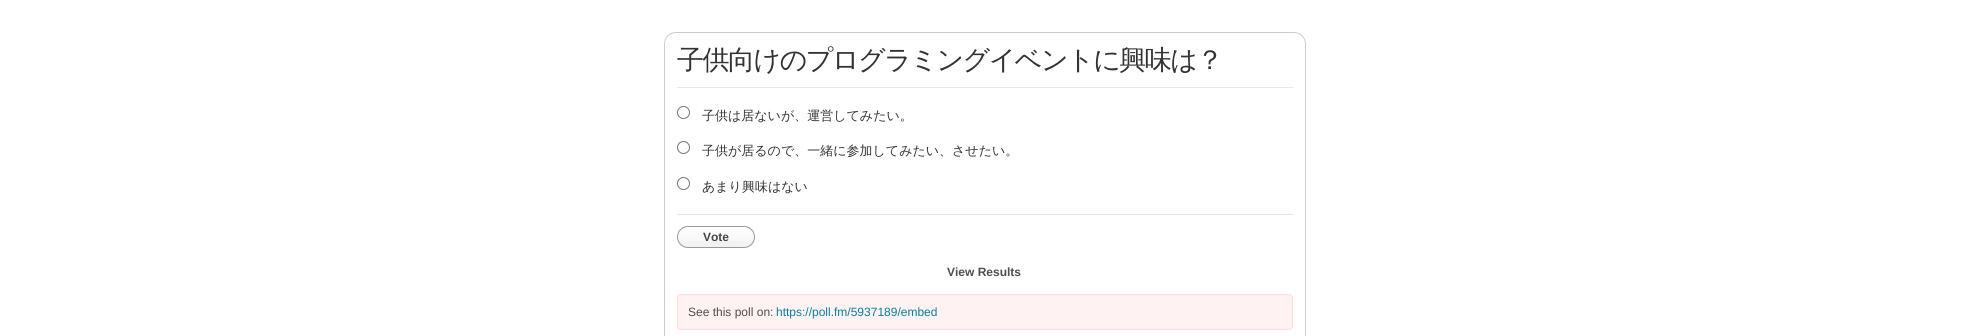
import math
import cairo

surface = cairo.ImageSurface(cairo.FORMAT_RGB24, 1967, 336)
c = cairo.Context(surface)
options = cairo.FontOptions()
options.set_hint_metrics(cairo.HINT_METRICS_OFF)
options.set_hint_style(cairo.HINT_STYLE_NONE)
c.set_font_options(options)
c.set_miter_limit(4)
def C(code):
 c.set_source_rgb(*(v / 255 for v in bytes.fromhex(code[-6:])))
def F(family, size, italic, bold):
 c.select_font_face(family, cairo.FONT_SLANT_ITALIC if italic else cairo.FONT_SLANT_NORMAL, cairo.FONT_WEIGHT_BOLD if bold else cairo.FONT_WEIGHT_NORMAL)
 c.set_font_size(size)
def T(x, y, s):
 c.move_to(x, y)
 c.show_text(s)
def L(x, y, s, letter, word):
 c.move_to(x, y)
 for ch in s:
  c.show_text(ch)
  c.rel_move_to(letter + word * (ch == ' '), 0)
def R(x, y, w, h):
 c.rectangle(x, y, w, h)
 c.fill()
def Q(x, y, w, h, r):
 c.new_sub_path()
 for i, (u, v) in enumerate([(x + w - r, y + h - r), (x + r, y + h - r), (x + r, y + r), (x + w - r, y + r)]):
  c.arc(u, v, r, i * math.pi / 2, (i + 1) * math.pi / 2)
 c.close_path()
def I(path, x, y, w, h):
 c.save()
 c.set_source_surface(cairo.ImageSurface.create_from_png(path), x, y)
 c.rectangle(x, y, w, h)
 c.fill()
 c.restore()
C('ffffff')
c.paint()
Q(664.5,32.5,641,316,11.5)
C('cccccc')
c.set_line_width(1)
c.stroke()
F('WenQuanYi Zen Hei Medium',27,0,0)
C('333333')
L(677,69,'子供向けのプログラミングイベントに興味は？',-1.5,0)
C('e8e8e8')
R(677,87,616,1)
R(677,214,616,1)
c.new_path()
c.arc(683.5,112.5,6,0,2 * math.pi)
C('767676')
c.stroke()
F('WenQuanYi Zen Hei Medium',13,0,0)
C('333333')
T(702,120,'子供は居ないが、運営してみたい。')
c.new_path()
c.arc(683.5,147.5,6,0,2 * math.pi)
C('767676')
c.stroke()
C('333333')
T(702,155,'子供が居るので、一緒に参加してみたい、させたい。')
c.new_path()
c.arc(683.5,183.5,6,0,2 * math.pi)
C('767676')
c.stroke()
C('333333')
T(702,191,'あまり興味はない')
C('f2f2f2')
Q(677,226,78,22,11)
c.fill()
I('1.png',677,227,78,14)
Q(677.5,226.5,77,21,10.5)
C('999999')
c.stroke()
F('Liberation Sans',12,0,1)
C('464646')
T(703,241,'Vote')
C('4e4e4e')
T(947,276,'View Results')
C('fff2f2')
Q(677.5,294.5,615,35,3.5)
c.fill_preserve()
C('ffdcdc')
c.stroke()
F('Liberation Sans',12,0,0)
C('4e4e4e')
T(688,316,'See this poll on:')
C('0182a8')
T(776,316,'https://poll.fm/5937189/embed')
surface.write_to_png('o.png')
